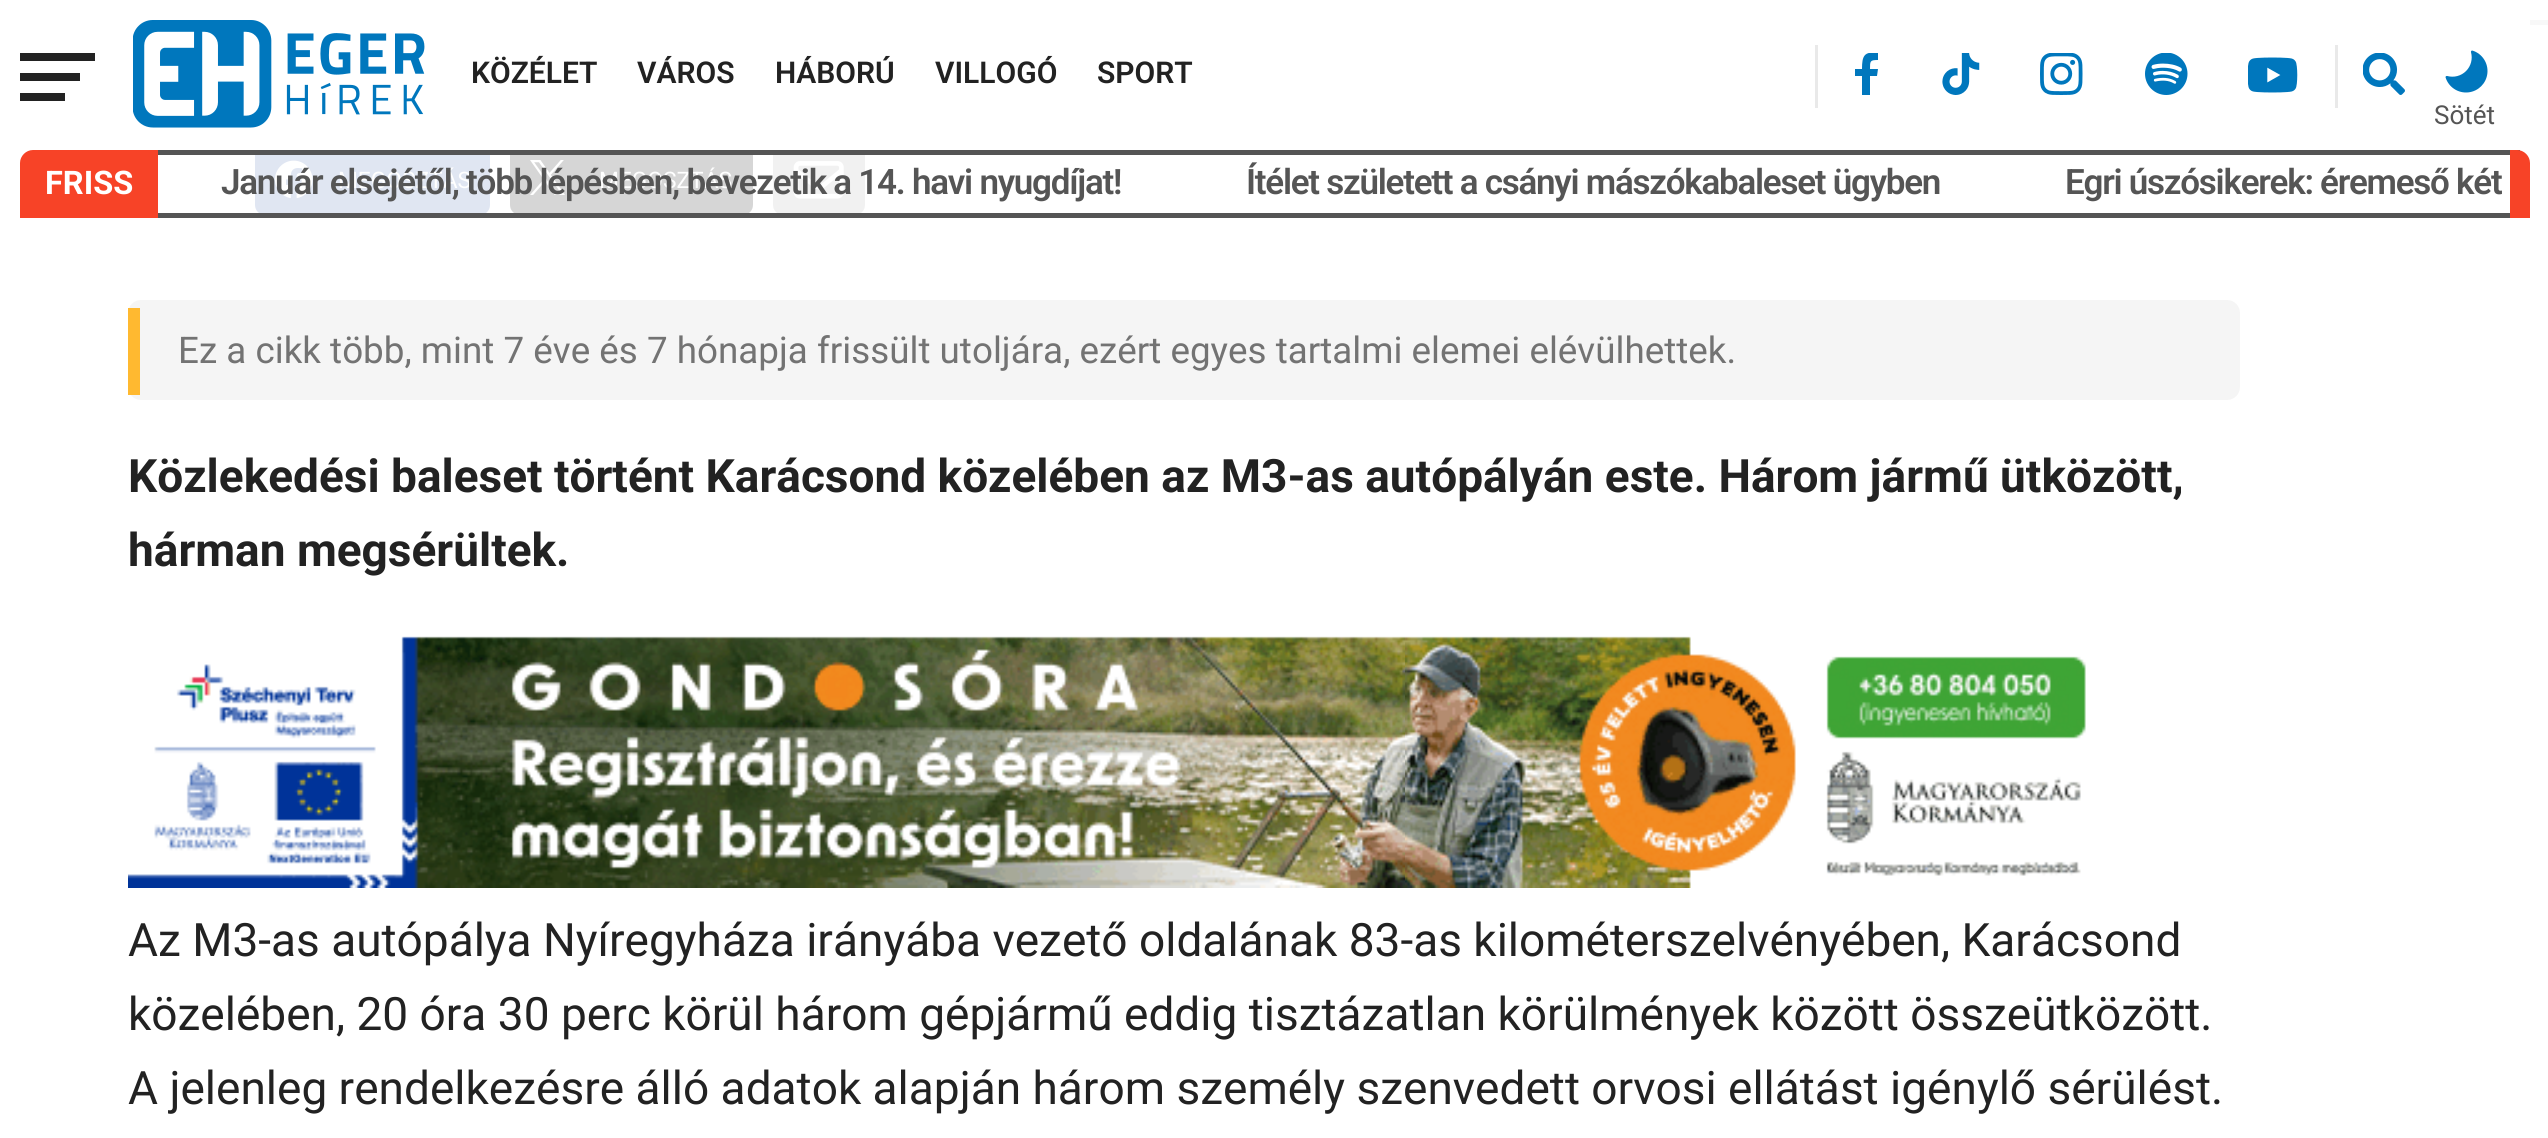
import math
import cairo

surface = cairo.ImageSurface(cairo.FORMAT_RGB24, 2548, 1138)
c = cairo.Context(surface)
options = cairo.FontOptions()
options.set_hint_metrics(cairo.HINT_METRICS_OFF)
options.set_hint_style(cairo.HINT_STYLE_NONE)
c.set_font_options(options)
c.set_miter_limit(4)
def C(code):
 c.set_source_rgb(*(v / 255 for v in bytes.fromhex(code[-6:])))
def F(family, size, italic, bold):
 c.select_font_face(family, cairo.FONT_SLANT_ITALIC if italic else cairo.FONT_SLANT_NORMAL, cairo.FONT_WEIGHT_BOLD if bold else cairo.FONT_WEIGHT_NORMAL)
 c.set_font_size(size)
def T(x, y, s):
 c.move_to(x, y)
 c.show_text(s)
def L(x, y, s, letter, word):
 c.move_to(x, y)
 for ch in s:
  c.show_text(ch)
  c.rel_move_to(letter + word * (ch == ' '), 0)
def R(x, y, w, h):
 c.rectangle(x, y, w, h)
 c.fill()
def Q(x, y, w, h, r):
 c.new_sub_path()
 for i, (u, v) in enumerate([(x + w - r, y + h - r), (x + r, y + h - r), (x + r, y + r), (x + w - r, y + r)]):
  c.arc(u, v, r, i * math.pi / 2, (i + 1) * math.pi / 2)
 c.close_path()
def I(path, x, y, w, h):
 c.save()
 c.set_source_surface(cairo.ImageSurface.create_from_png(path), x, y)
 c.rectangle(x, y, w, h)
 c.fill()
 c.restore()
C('ffffff')
c.paint()
C('d8e0ef')
Q(255,145,235,70,10)
c.fill()
C('cccccc')
Q(510,145,243,70,10)
c.fill()
C('eeeeee')
Q(773,145,92,70,10)
c.fill()
C('ffffff')
R(256,145,608,5)
C('222222')
R(20,53,75,8)
R(20,73,60,8)
R(20,93,45,8)
I('1.png',133,20,292,108)
F('Roboto SemiBold',30,0,0)
T(471,83,'KÖZÉLET')
T(637,83,'VÁROS')
T(775,83,'HÁBORÚ')
T(935,83,'VILLOGÓ')
T(1097,83,'SPORT')
C('e9e9e9')
R(2335,45,3,63)
R(1815,45,3,63)
c.save()
c.rectangle(1855,53,25,42)
c.clip()
C('0077bd')
c.new_path()
c.move_to(1877,76)
c.line_to(1878,69)
c.line_to(1870,69)
c.curve_to(1870,61,1870,60,1878,60)
c.line_to(1878,53)
c.curve_to(1864,51,1862,56,1862,69)
c.line_to(1855,69)
c.line_to(1855,76)
c.line_to(1862,76)
c.line_to(1862,95)
c.line_to(1870,95)
c.line_to(1870,76)
c.close_path()
c.fill()
c.restore()
I('2.png',1942,53,38,42)
I('3.png',2040,53,43,42)
I('4.png',2145,53,43,42)
I('5.png',2248,57,50,36)
I('6.png',2363,53,42,42)
I('7.png',2445,50,43,43)
F('Roboto',26,0,0)
C('555555')
T(2434,124,'Sötét')
C('f74327')
c.new_path()
c.move_to(33,150)
c.line_to(158,150)
c.line_to(158,218)
c.line_to(20,218)
c.line_to(20,163)
c.curve_to(20,156,26,150,33,150)
c.close_path()
c.fill()
F('Roboto',32.5,0,1)
C('ffffff')
T(45,194,'FRISS')
I('8.png',275,160,38,39)
F('Roboto',22.75,0,0)
T(338,188,'MEGOSZTÁS')
I('9.png',530,160,35,35)
T(599,188,'MEGOSZTÁS')
I('10.png',793,161,51,38)
c.set_source_rgba(1,1,1,0.2)
R(255,155,610,58)
C('555555')
R(158,150,2362,5)
R(158,213,2352,5)
F('Roboto SemiBold',35,0,0)
L(221,194,'Január elsejétől, több lépésben, bevezetik a 14. havi nyugdíjat!',-1.25,0)
L(1246,194,'Ítélet született a csányi mászókabaleset ügyben',-1.25,0)
L(2065,194,'Egri úszósikerek: éremeső két',-1.25,0)
C('f74327')
c.new_path()
c.move_to(2510,150)
c.line_to(2517,150)
c.curve_to(2524,150,2530,156,2530,163)
c.line_to(2530,218)
c.line_to(2510,218)
c.close_path()
c.fill()
C('f8f8f8')
R(2530,20,18,5)
C('f5f5f5')
Q(128,300,2112,100,13)
c.fill()
C('ffb930')
R(128,308,12,87)
F('Roboto',36.8,0,0)
C('737373')
T(178,363,'Ez a cikk több, mint 7 éve és 7 hónapja frissült utoljára, ezért egyes tartalmi elemei elévülhettek.')
F('Roboto',46,0,1)
C('222222')
T(128,492,'Közlekedési baleset történt Karácsond közelében az M3-as autópályán este. Három jármű ütközött,')
T(128,566,'hárman megsérültek.')
I('11.png',128,636,1958,252)
F('Roboto',46,0,0)
T(128,956,'Az M3-as autópálya Nyíregyháza irányába vezető oldalának 83-as kilométerszelvényében, Karácsond')
T(128,1030,'közelében, 20 óra 30 perc körül három gépjármű eddig tisztázatlan körülmények között összeütközött.')
T(128,1104,'A jelenleg rendelkezésre álló adatok alapján három személy szenvedett orvosi ellátást igénylő sérülést.')
surface.write_to_png('o.png')
